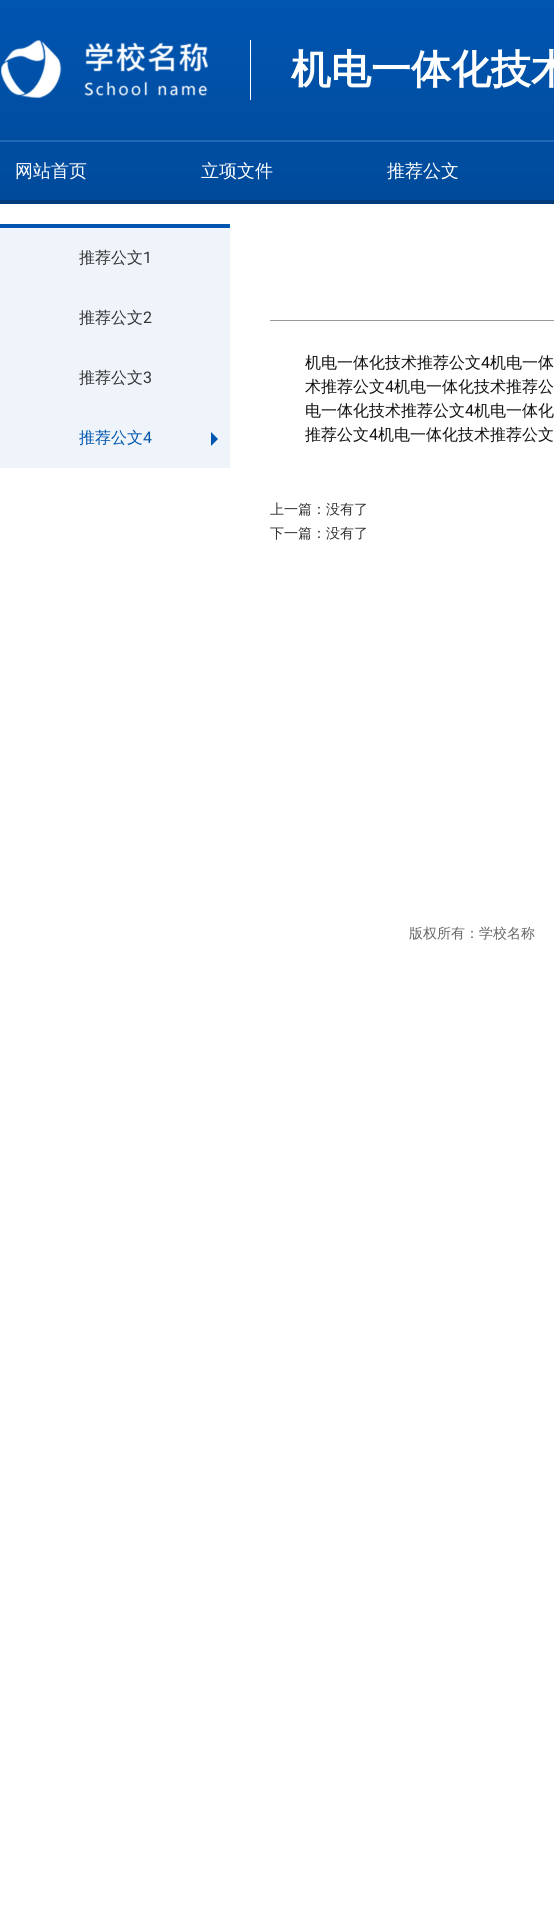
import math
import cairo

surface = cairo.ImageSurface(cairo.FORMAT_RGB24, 554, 1919)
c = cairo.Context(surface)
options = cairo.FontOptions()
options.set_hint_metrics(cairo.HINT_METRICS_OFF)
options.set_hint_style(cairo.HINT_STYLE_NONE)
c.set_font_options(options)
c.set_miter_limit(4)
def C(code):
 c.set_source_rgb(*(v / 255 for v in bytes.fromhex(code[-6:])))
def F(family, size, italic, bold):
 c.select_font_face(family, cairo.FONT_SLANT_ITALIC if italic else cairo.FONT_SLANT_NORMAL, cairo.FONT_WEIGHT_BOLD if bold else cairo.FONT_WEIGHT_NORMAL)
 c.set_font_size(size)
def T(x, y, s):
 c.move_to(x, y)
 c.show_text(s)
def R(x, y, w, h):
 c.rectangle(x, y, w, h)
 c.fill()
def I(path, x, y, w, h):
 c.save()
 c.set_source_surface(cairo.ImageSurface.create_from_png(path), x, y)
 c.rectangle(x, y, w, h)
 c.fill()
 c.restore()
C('ffffff')
c.paint()
gradient = cairo.LinearGradient(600,200,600,0)
gradient.add_color_stop_rgba(0,0,0.29,0.604,1)
gradient.add_color_stop_rgba(1,0,0.333,0.694,1)
c.set_source(gradient)
R(0,0,554,200)
C('003b7b')
R(0,200,554,4)
I('1.png',1,40,207,58)
C('ffffff')
R(250,40,1,60)
F('WenQuanYi Zen Hei',40,0,1)
T(291,83,'机电一体化技术')
C('2169b6')
R(0,140,554,2)
F('WenQuanYi Zen Hei Medium',18,0,0)
C('ffffff')
T(15,177,'网站首页')
T(201,177,'立项文件')
T(387,177,'推荐公文')
C('eff4fa')
R(0,228,230,240)
C('0055b1')
R(0,224,230,4)
F('WenQuanYi Zen Hei Medium',16,0,0)
C('333333')
T(79,263,'推荐公文')
F('Roboto',16,0,0)
T(143,263,'1')
F('WenQuanYi Zen Hei Medium',16,0,0)
T(79,323,'推荐公文')
F('Roboto',16,0,0)
T(143,323,'2')
F('WenQuanYi Zen Hei Medium',16,0,0)
T(79,383,'推荐公文')
F('Roboto',16,0,0)
T(143,383,'3')
F('WenQuanYi Zen Hei Medium',16,0,0)
C('0055b1')
T(79,443,'推荐公文')
F('Roboto',16,0,0)
T(143,443,'4')
c.new_path()
c.move_to(211,432)
c.line_to(218,439)
c.line_to(211,439)
c.close_path()
c.move_to(218,439)
c.line_to(211,446)
c.line_to(211,439)
c.close_path()
c.fill()
C('999999')
R(270,320,284,1)
F('WenQuanYi Zen Hei Medium',16,0,0)
C('111111')
T(305,368,'机电一体化技术推荐公文')
F('Roboto',16,0,0)
T(481,368,'4')
F('WenQuanYi Zen Hei Medium',16,0,0)
T(490,368,'机电一体')
T(305,392,'术推荐公文')
F('Roboto',16,0,0)
T(385,392,'4')
F('WenQuanYi Zen Hei Medium',16,0,0)
T(394,392,'机电一体化技术推荐公')
T(305,416,'电一体化技术推荐公文')
F('Roboto',16,0,0)
T(465,416,'4')
F('WenQuanYi Zen Hei Medium',16,0,0)
T(474,416,'机电一体化')
T(305,440,'推荐公文')
F('Roboto',16,0,0)
T(369,440,'4')
F('WenQuanYi Zen Hei Medium',16,0,0)
T(378,440,'机电一体化技术推荐公文')
F('WenQuanYi Zen Hei Medium',14,0,0)
C('333333')
T(270,514,'上一篇：没有了')
T(270,538,'下一篇：没有了')
C('666666')
T(409,938,'版权所有：学校名称')
surface.write_to_png('o.png')
